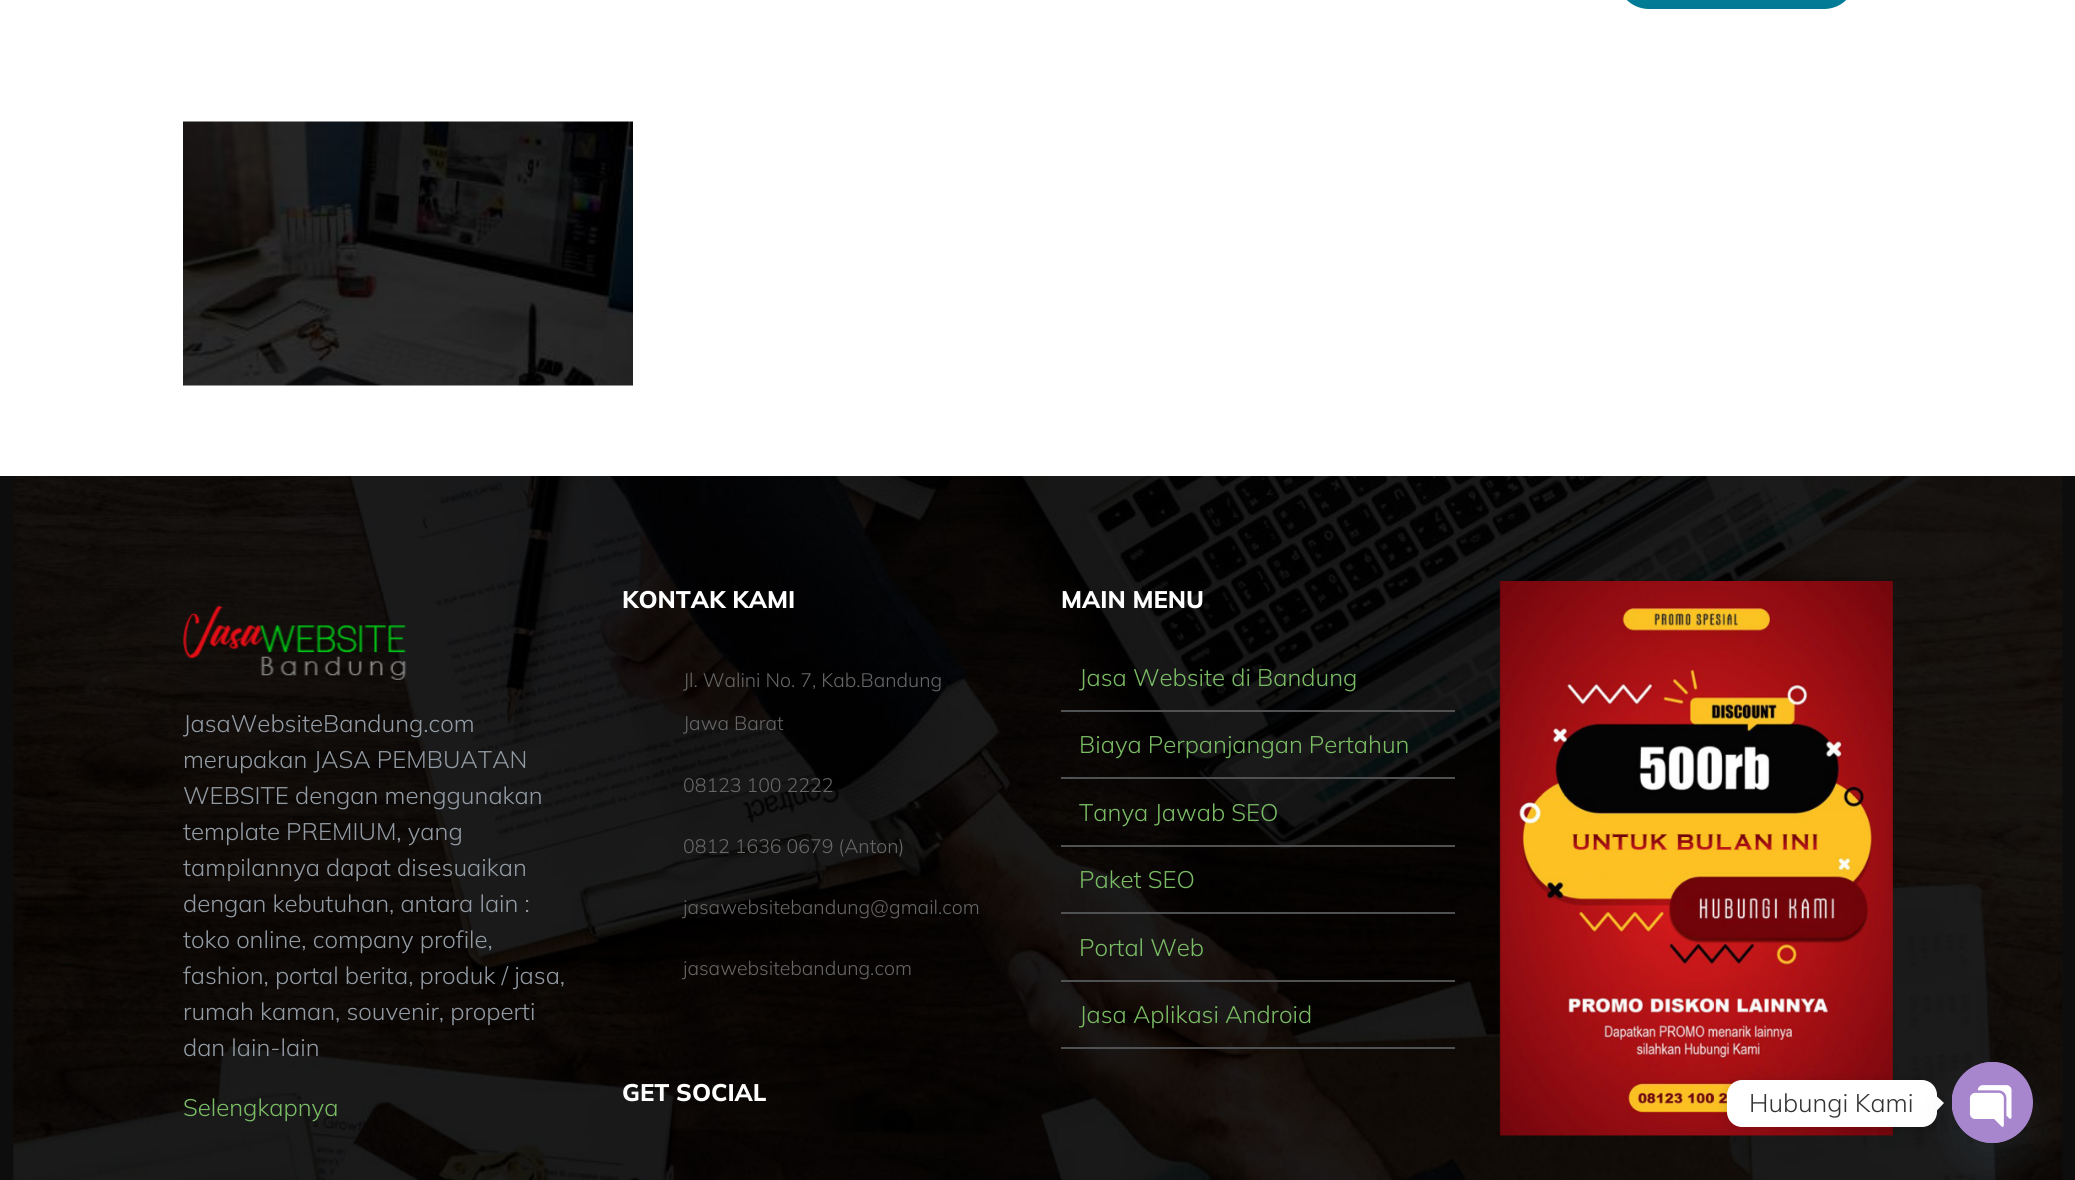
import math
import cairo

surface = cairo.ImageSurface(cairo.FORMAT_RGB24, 2075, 1180)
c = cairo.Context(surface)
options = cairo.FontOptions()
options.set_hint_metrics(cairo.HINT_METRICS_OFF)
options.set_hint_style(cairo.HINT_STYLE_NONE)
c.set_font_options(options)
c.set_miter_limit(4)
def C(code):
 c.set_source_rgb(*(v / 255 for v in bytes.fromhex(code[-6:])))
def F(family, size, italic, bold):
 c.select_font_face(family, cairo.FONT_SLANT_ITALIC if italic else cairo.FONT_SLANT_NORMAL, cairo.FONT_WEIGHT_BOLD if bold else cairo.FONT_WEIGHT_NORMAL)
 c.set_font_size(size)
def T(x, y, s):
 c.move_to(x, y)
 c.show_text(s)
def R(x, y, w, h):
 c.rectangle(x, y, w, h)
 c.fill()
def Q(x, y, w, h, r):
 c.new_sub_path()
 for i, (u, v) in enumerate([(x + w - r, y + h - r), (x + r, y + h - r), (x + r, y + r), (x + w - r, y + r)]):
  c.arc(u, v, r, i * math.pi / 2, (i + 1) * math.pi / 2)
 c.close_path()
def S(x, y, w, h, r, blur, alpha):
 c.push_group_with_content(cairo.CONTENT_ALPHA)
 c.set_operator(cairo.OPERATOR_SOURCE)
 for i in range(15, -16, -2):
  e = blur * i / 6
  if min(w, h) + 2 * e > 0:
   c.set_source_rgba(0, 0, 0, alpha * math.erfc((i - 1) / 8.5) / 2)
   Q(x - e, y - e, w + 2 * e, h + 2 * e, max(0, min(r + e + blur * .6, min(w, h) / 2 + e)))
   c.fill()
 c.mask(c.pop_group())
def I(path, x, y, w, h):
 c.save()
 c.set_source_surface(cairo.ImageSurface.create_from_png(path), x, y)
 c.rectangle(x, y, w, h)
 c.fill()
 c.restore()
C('ffffff')
c.paint()
gradient = cairo.LinearGradient(1736,-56,1736,9)
gradient.add_color_stop_rgba(0,0.004,0.584,0.729,1)
gradient.add_color_stop_rgba(1,0.004,0.475,0.576,1)
c.set_source(gradient)
Q(1617,-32,239,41,32)
c.fill()
I('1.png',183,121,450,265)
C('0d0d0d')
R(0,476,2075,704)
I('2.png',13,476,2050,704)
I('3.png',183,605,224,75)
F('Mulish Light',24,0,0)
C('929aa3')
T(183,732,'JasaWebsiteBandung.com')
T(183,768,'merupakan JASA PEMBUATAN')
T(183,804,'WEBSITE dengan menggunakan')
T(183,840,'template PREMIUM, yang')
T(183,876,'tampilannya dapat disesuaikan')
T(183,912,'dengan kebutuhan, antara lain :')
T(183,948,'toko online, company profile,')
T(183,984,'fashion, portal berita, produk / jasa,')
T(183,1020,'rumah kaman, souvenir, properti')
T(183,1056,'dan lain-lain')
C('7abc64')
T(183,1116,'Selengkapnya')
F('Mulish ExtraBold',24,0,0)
C('ffffff')
T(622,608,'KONTAK KAMI')
F('Mulish Light',19.5,0,0)
C('686868')
T(683,687,'Jl. Walini No. 7, Kab.Bandung')
T(683,730,'Jawa Barat')
T(683,792,'08123 100 2222')
T(683,853,'0812 1636 0679 (Anton)')
T(683,914,'jasawebsitebandung@gmail.com')
T(683,975,'jasawebsitebandung.com')
F('Mulish ExtraBold',24,0,0)
C('ffffff')
T(622,1101,'GET SOCIAL')
T(1061,608,'MAIN MENU')
C('505152')
R(1061,710,394,2)
F('Mulish Light',24,0,0)
C('7abc64')
T(1079,686,'Jasa Website di Bandung')
C('505152')
R(1061,777,394,2)
C('7abc64')
T(1079,753,'Biaya Perpanjangan Pertahun')
C('505152')
R(1061,845,394,2)
C('7abc64')
T(1079,821,'Tanya Jawab SEO')
C('505152')
R(1061,912,394,2)
C('7abc64')
T(1079,888,'Paket SEO')
C('505152')
R(1061,980,394,2)
C('7abc64')
T(1079,956,'Portal Web')
C('505152')
R(1061,1047,394,2)
C('7abc64')
T(1079,1023,'Jasa Aplikasi Android')
I('4.png',1499,581,394,555)
C('000000')
S(1727,1082,210,46,15,6,.15)
C('ffffff')
Q(1727,1080,210,47,15)
c.fill()
F('Mulish Light',25.5,0,0)
C('333333')
T(1749,1112,'Hubungi Kami')
C('ffffff')
c.new_path()
c.move_to(1936.5,1111)
c.line_to(1936.5,1096)
c.line_to(1944,1103)
c.close_path()
c.fill()
C('49687e')
S(1952,1086,81,81,40.5,18,.16)
C('a886cd')
c.arc(1992.5,1102.5,40.5,0,2 * math.pi)
c.fill()
I('5.png',1952,1062,76,81)
surface.write_to_png('o.png')
